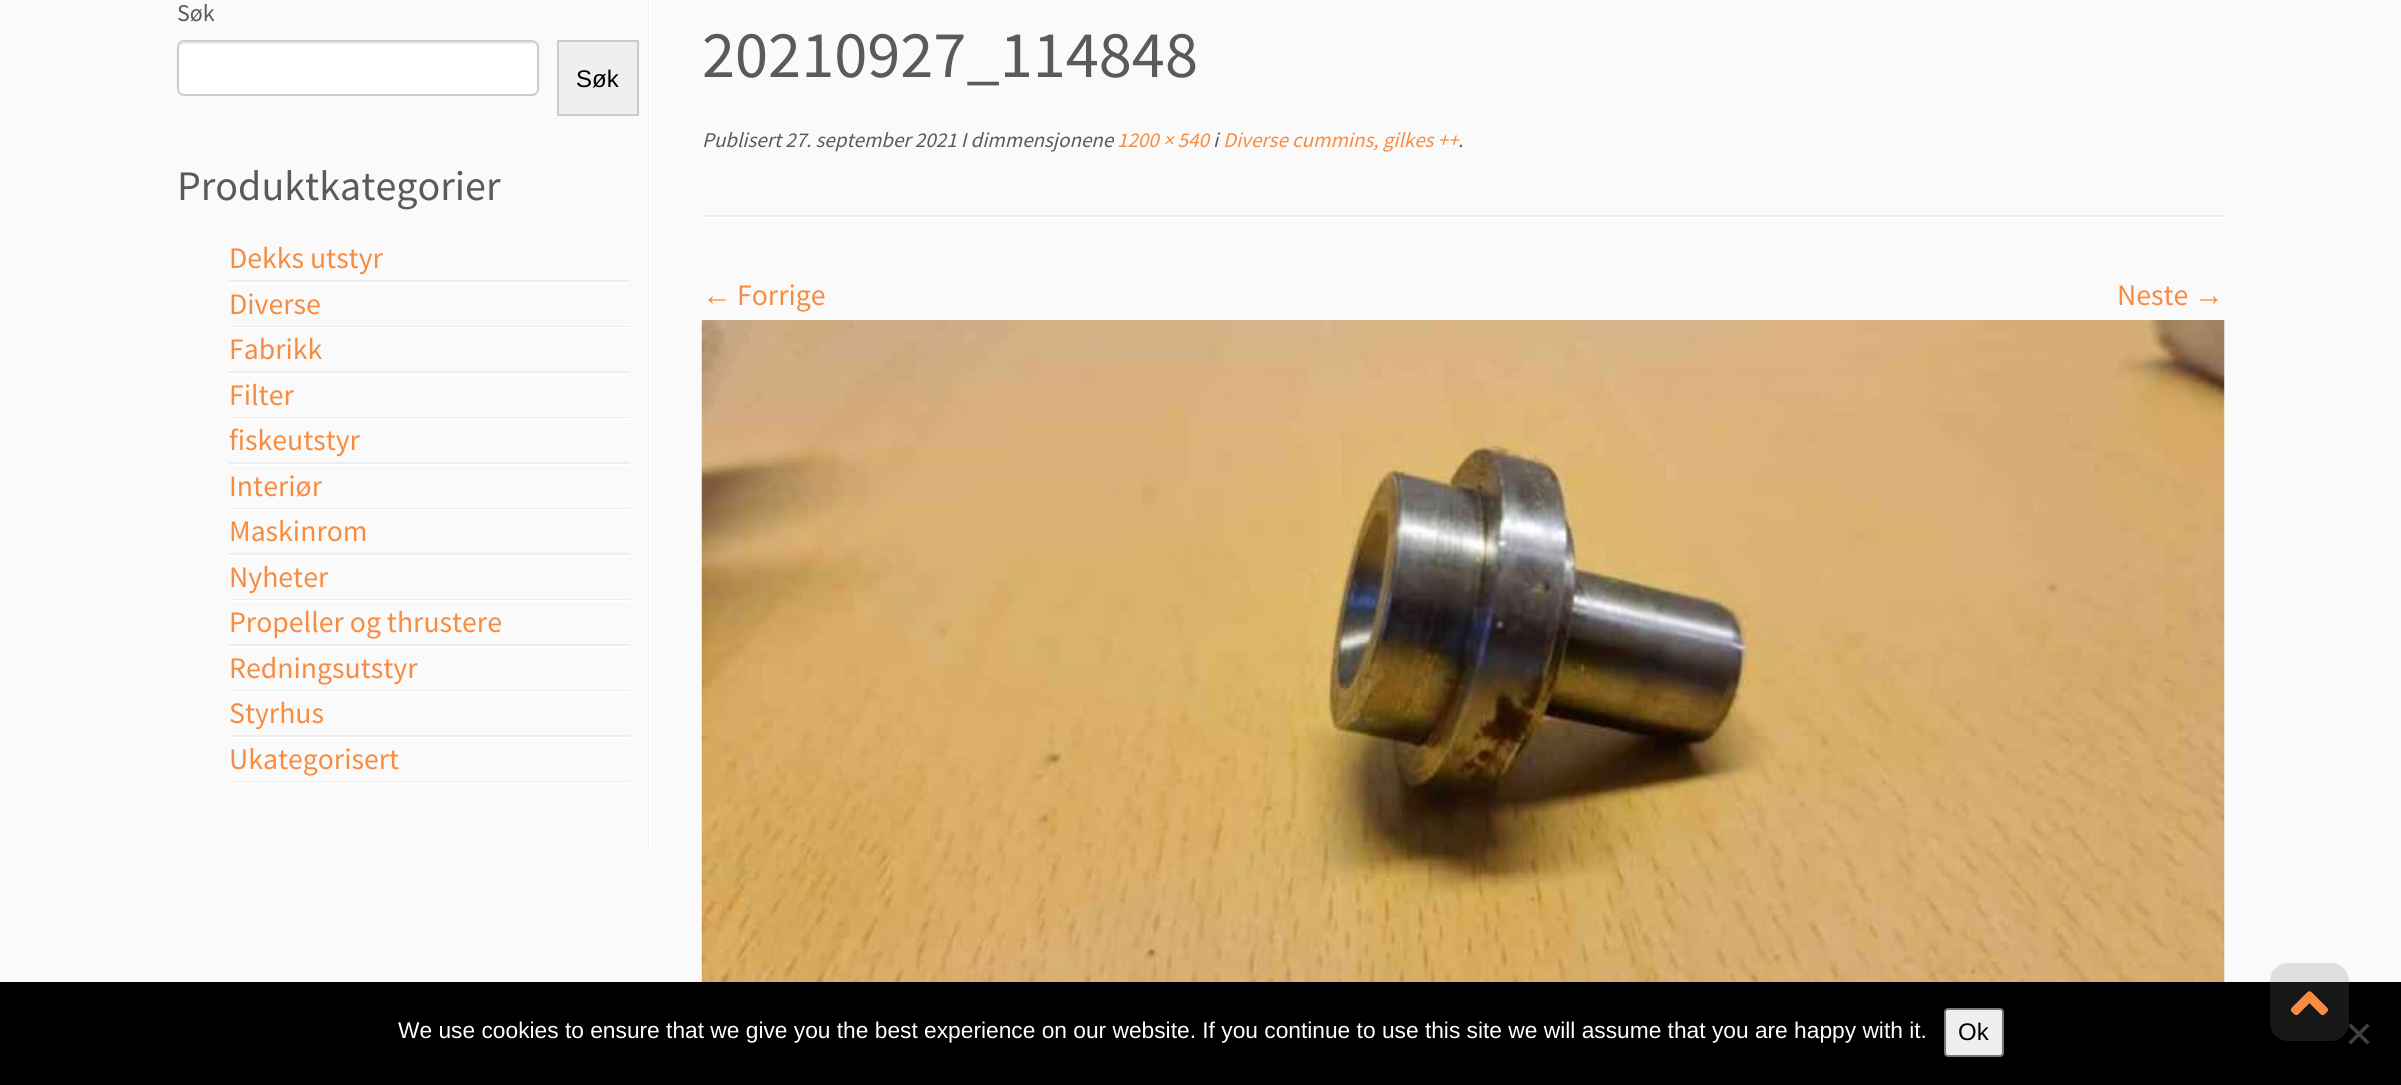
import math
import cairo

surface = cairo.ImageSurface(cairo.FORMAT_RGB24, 2401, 1085)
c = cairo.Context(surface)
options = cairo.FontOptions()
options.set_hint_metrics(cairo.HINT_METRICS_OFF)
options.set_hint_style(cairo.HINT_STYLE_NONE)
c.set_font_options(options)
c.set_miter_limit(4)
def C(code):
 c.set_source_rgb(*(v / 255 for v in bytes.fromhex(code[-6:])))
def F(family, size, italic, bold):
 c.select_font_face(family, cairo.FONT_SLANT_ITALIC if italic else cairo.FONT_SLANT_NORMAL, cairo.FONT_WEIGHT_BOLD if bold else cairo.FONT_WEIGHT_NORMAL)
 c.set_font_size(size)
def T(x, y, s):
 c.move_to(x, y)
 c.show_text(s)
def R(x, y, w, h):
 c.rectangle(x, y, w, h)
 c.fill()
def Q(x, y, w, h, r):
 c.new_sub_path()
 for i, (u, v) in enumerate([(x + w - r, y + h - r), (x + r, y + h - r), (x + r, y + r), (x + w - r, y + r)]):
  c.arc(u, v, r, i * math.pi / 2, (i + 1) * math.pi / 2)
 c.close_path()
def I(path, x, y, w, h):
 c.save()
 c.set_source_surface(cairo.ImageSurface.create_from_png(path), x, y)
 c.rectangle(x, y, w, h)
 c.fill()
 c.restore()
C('fafafa')
c.paint()
C('eeeeee')
R(648,0,1,849)
F('Source Sans Pro',24,0,0)
C('5a5a5a')
T(177,21,'Søk')
C('ffffff')
Q(177,40,362,56,7)
c.fill()
C('ececec')
c.new_path()
c.move_to(184,44)
c.line_to(532,44)
c.curve_to(535,44,537,46,537,49)
c.curve_to(537,46,536,42,532,42)
c.line_to(184,42)
c.curve_to(182,42,179,44,179,46)
c.curve_to(180,45,182,44,184,44)
c.close_path()
c.fill()
Q(178,41,360,54,6)
C('cccccc')
c.stroke()
C('efefef')
c.rectangle(558,41,80,74)
c.fill_preserve()
C('cccccc')
c.stroke()
F('Liberation Sans',24,0,0)
C('000000')
T(576,87,'Søk')
C('ffffff')
R(649,0,2,849)
F('Source Sans Pro',42,0,0)
C('5a5a5a')
T(177,200,'Produktkategorier')
C('eeeeee')
R(229,280,401,2)
F('Source Sans Pro',29.75,0,0)
C('f78c40')
T(229,268,'Dekks utstyr')
C('ffffff')
R(229,282,401,2)
C('eeeeee')
R(229,326,401,1)
C('f78c40')
T(229,314,'Diverse')
C('ffffff')
R(229,327,401,2)
C('eeeeee')
R(229,371,401,2)
C('f78c40')
T(229,359,'Fabrikk')
C('ffffff')
R(229,373,401,2)
C('eeeeee')
R(229,417,401,1)
C('f78c40')
T(229,405,'Filter')
C('ffffff')
R(229,418,401,2)
C('eeeeee')
R(229,462,401,2)
C('f78c40')
T(229,450,'fiskeutstyr')
C('ffffff')
R(229,464,401,2)
C('eeeeee')
R(229,508,401,1)
C('f78c40')
T(229,496,'Interiør')
C('ffffff')
R(229,509,401,2)
C('eeeeee')
R(229,553,401,2)
C('f78c40')
T(229,541,'Maskinrom')
C('ffffff')
R(229,555,401,2)
C('eeeeee')
R(229,599,401,1)
C('f78c40')
T(229,587,'Nyheter')
C('ffffff')
R(229,600,401,2)
C('eeeeee')
R(229,644,401,2)
C('f78c40')
T(229,632,'Propeller og thrustere')
C('ffffff')
R(229,646,401,2)
C('eeeeee')
R(229,690,401,1)
C('f78c40')
T(229,678,'Redningsutstyr')
C('ffffff')
R(229,691,401,2)
C('eeeeee')
R(229,735,401,2)
C('f78c40')
T(229,723,'Styrhus')
C('ffffff')
R(229,737,401,2)
C('eeeeee')
R(229,781,401,1)
C('f78c40')
T(229,769,'Ukategorisert')
C('ffffff')
R(229,782,401,2)
F('Source Sans Pro',66.5,0,0)
C('5a5a5a')
T(702,77,'20210927_114848')
F('Source Sans Pro',21,1,0)
T(702,147,'Publisert 27. september 2021 I dimmensjonene')
C('f78c40')
T(1117,147,'1200 × 540')
C('5a5a5a')
T(1213,147,'i')
C('f78c40')
T(1223,147,'Diverse cummins, gilkes ++')
C('5a5a5a')
T(1458,147,'.')
C('eeeeee')
R(702,215,1522,2)
C('ffffff')
R(702,217,1522,2)
F('Liberation Serif',29.75,0,0)
C('f78c40')
T(702,305,'←')
F('Source Sans Pro',29.75,0,0)
T(737,305,'Forrige')
T(2117,305,'Neste')
F('Liberation Serif',29.75,0,0)
T(2194,305,'→')
I('1.png',701,320,1524,662)
C('000000')
R(0,982,2401,103)
F('Liberation Sans',22.75,0,0)
C('ffffff')
T(398,1038,'We use cookies to ensure that we give you the best experience on our website. If you continue to use this site we will assume that you are happy with it.')
C('efefef')
Q(1945,1009,58,47,3)
c.fill_preserve()
C('767676')
c.stroke()
F('Liberation Sans',24,0,0)
C('000000')
T(1958,1040,'Ok')
C('404040')
c.new_path()
c.move_to(2367,1023.5)
c.line_to(2369.5,1026)
c.line_to(2351,1044.5)
c.line_to(2348.5,1042)
c.close_path()
c.fill()
c.new_path()
c.move_to(2348.5,1026)
c.line_to(2351,1023.5)
c.line_to(2369.5,1042)
c.line_to(2367,1044.5)
c.close_path()
c.fill()
c.set_source_rgba(0.467,0.467,0.467,0.2)
Q(2270,963,79,78,18)
c.fill()
I('2.png',2290,991,38,25)
surface.write_to_png('o.png')
